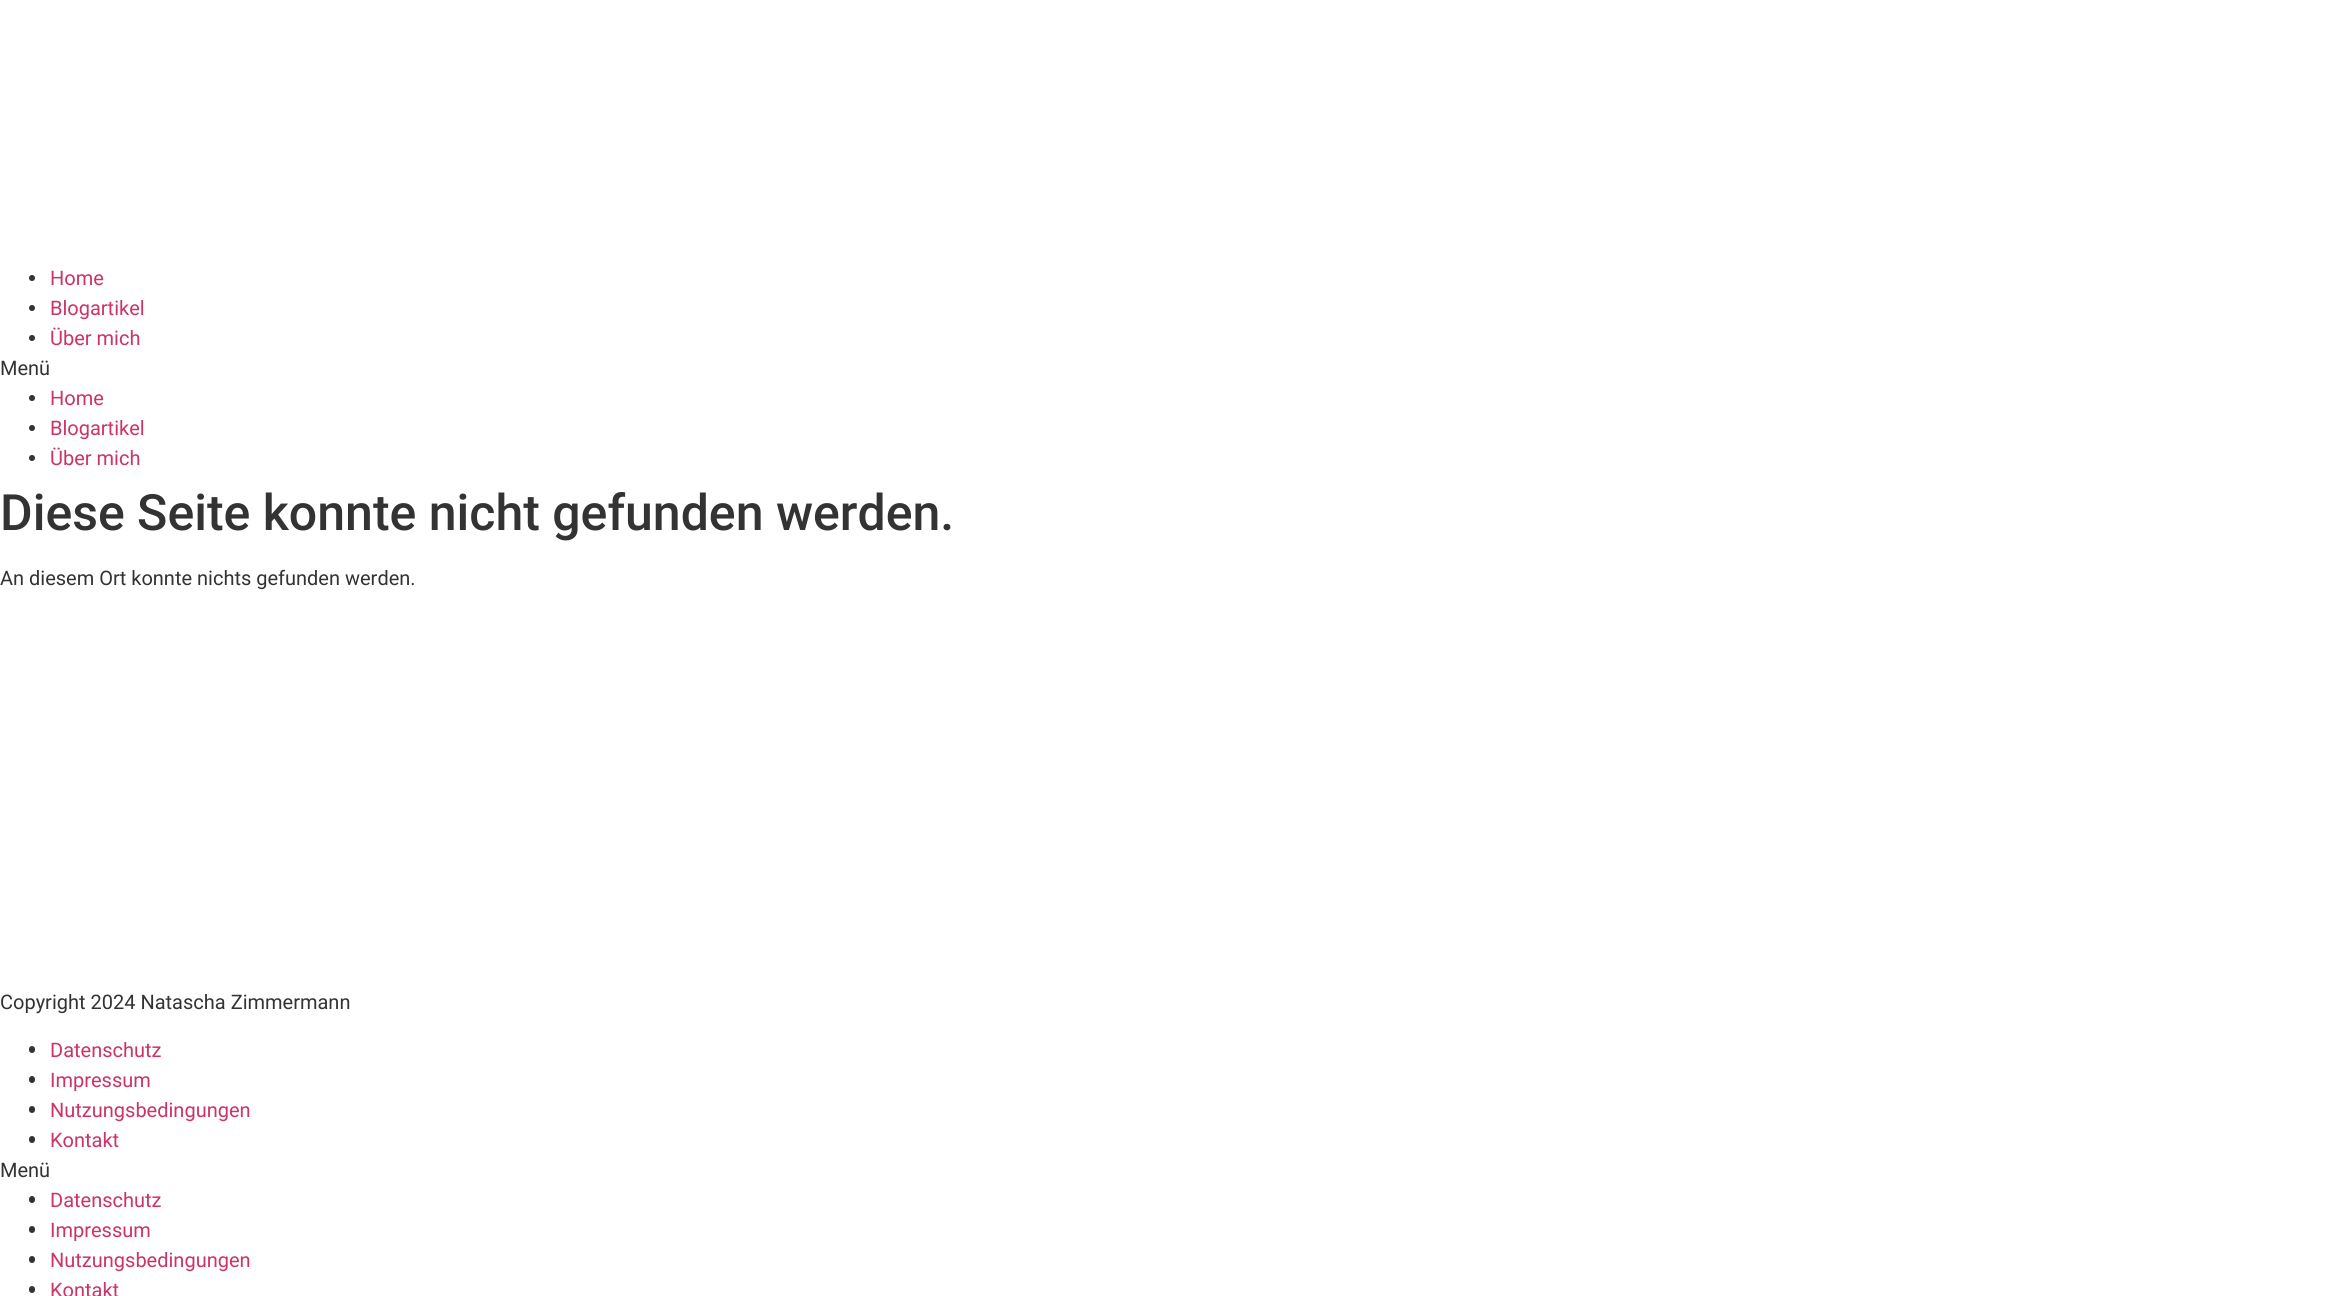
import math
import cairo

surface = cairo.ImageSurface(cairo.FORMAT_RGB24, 2349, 1296)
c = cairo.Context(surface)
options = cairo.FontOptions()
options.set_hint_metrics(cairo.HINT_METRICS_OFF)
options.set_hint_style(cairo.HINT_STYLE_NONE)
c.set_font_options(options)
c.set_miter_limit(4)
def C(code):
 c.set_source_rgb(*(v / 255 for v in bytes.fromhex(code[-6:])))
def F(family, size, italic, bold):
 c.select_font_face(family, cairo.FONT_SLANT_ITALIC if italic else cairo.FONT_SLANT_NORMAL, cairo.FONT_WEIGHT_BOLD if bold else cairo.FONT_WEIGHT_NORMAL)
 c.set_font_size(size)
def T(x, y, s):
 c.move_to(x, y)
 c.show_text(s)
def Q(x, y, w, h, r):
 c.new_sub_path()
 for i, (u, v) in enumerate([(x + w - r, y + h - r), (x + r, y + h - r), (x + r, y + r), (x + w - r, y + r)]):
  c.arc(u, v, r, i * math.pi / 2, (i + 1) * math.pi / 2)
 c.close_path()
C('ffffff')
c.paint()
C('333333')
c.arc(32,278,3,0,2 * math.pi)
c.fill()
F('Roboto',20,0,0)
C('cc3366')
T(50,285,'Home')
C('333333')
c.new_path()
c.arc(32,308,3,0,2 * math.pi)
c.fill()
C('cc3366')
T(50,315,'Blogartikel')
C('333333')
c.new_path()
c.arc(32,338,3,0,2 * math.pi)
c.fill()
C('cc3366')
T(50,345,'Über mich')
C('333333')
T(0,375,'Menü')
c.new_path()
c.arc(32,398,3,0,2 * math.pi)
c.fill()
C('cc3366')
T(50,405,'Home')
C('333333')
c.new_path()
c.arc(32,428,3,0,2 * math.pi)
c.fill()
C('cc3366')
T(50,435,'Blogartikel')
C('333333')
c.new_path()
c.arc(32,458,3,0,2 * math.pi)
c.fill()
C('cc3366')
T(50,465,'Über mich')
F('Roboto Medium',50,0,0)
C('333333')
T(0,530,'Diese Seite konnte nicht gefunden werden.')
F('Roboto',20,0,0)
T(0,585,'An diesem Ort konnte nichts gefunden werden.')
T(0,1009,'Copyright 2024 Natascha Zimmermann')
Q(29,1046,6,7,3)
c.fill()
C('cc3366')
T(50,1057,'Datenschutz')
C('333333')
Q(29,1076,6,7,3)
c.fill()
C('cc3366')
T(50,1087,'Impressum')
C('333333')
Q(29,1106,6,7,3)
c.fill()
C('cc3366')
T(50,1117,'Nutzungsbedingungen')
C('333333')
Q(29,1136,6,7,3)
c.fill()
C('cc3366')
T(50,1147,'Kontakt')
C('333333')
T(0,1177,'Menü')
Q(29,1196,6,7,3)
c.fill()
C('cc3366')
T(50,1207,'Datenschutz')
C('333333')
Q(29,1226,6,7,3)
c.fill()
C('cc3366')
T(50,1237,'Impressum')
C('333333')
Q(29,1256,6,7,3)
c.fill()
C('cc3366')
T(50,1267,'Nutzungsbedingungen')
C('333333')
Q(29,1286,6,7,3)
c.fill()
C('cc3366')
T(50,1297,'Kontakt')
surface.write_to_png('o.png')
